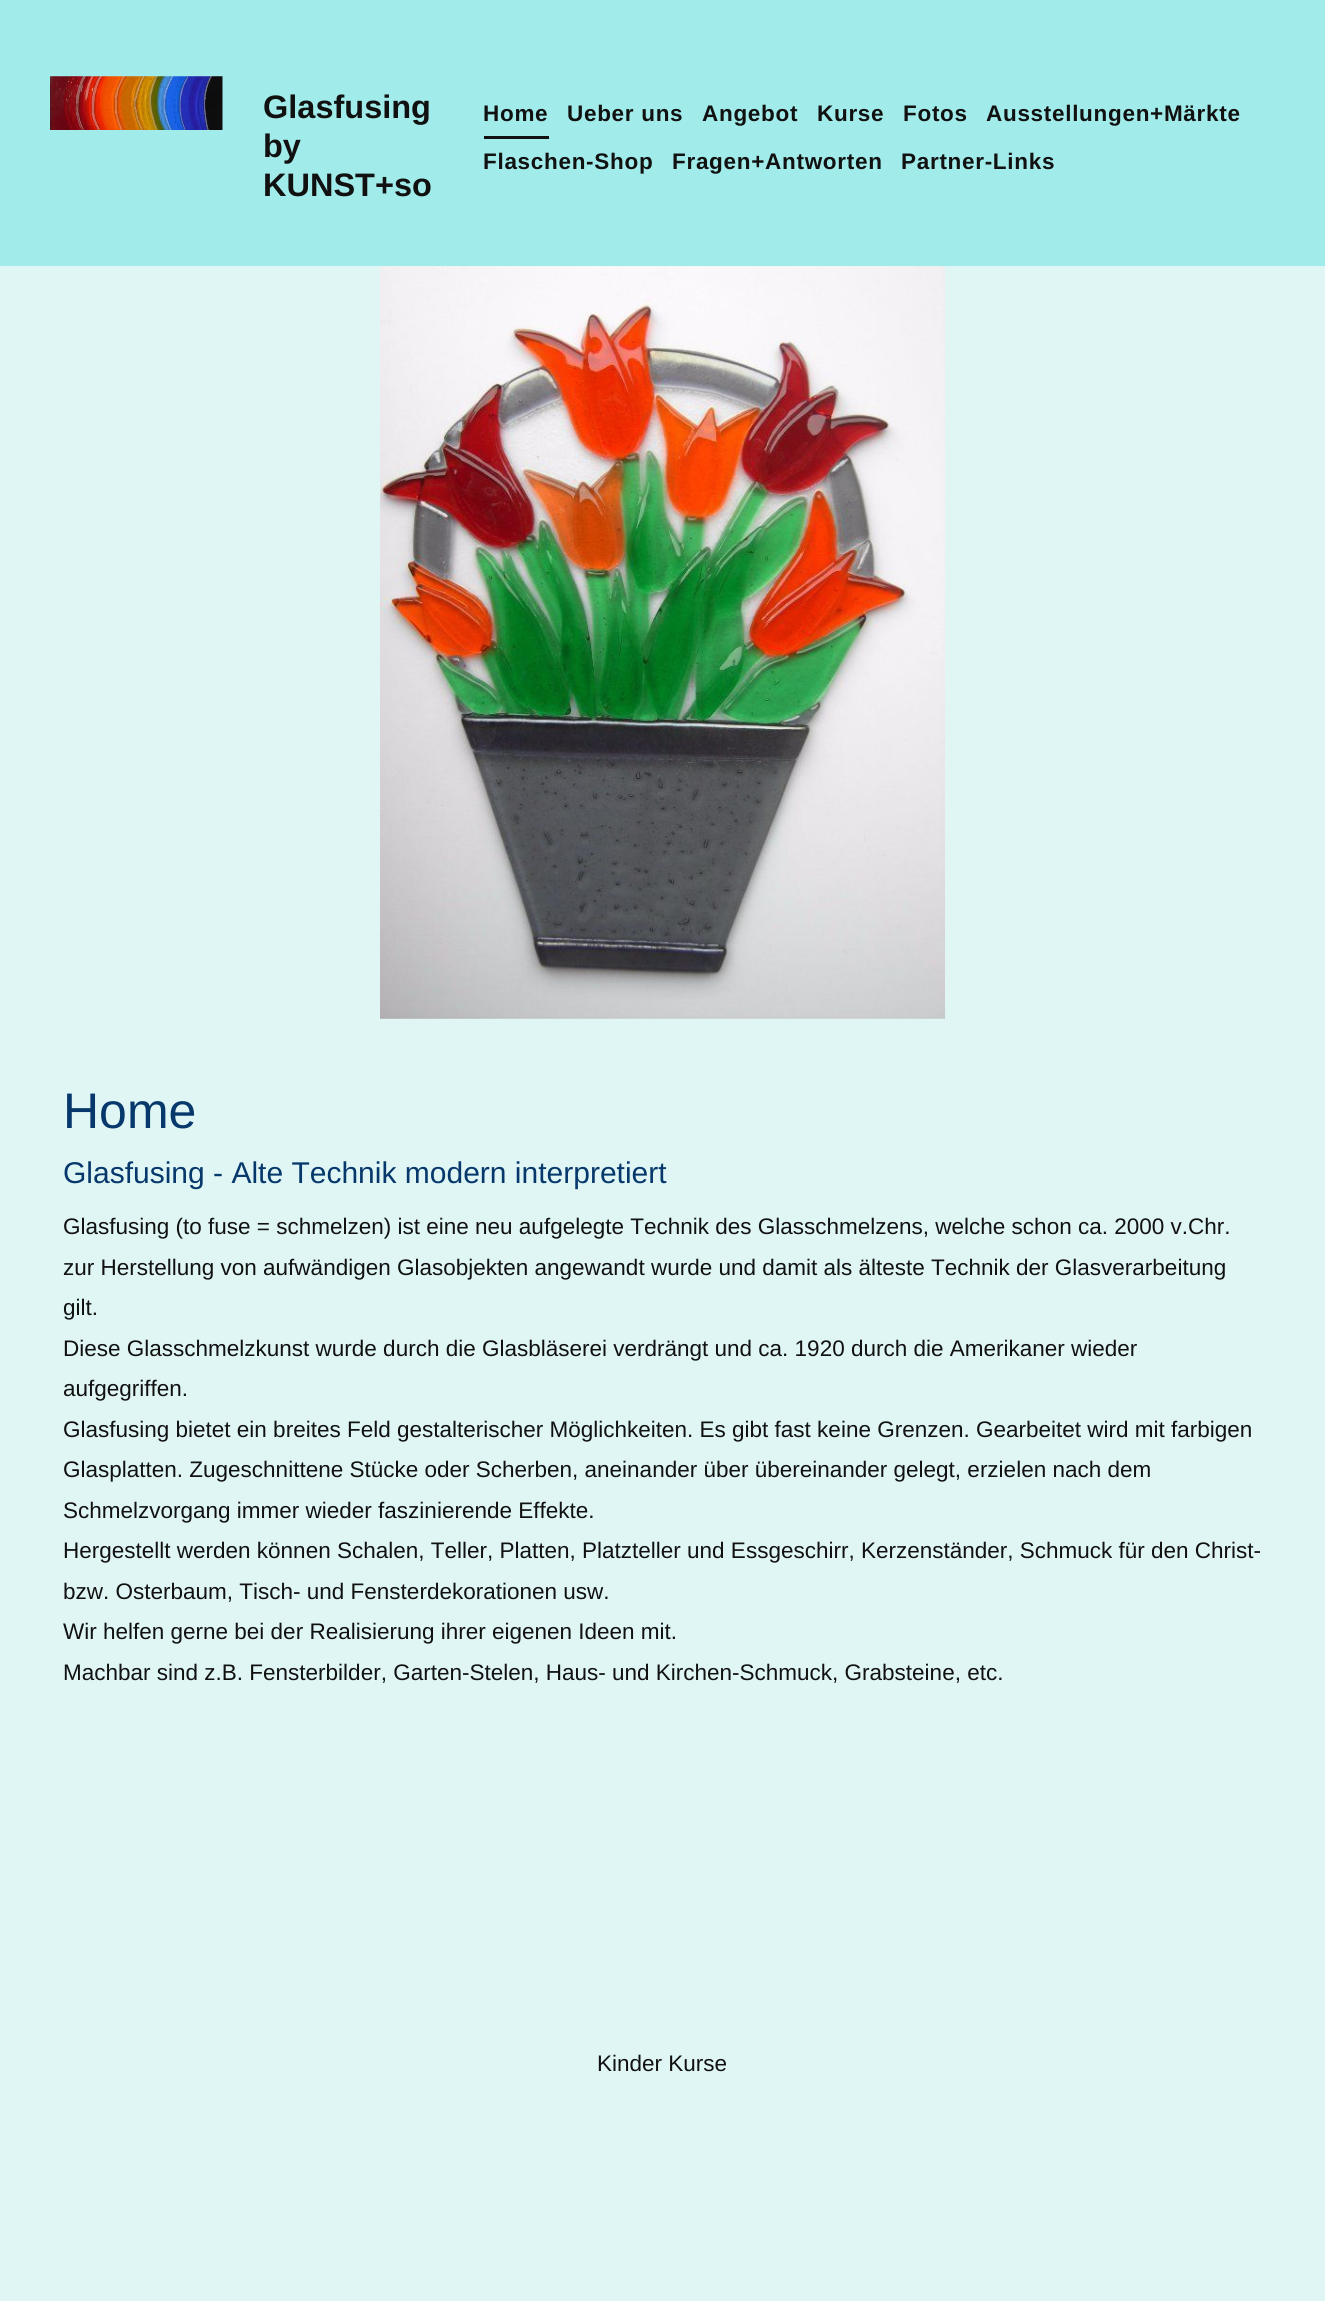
import math
import cairo

surface = cairo.ImageSurface(cairo.FORMAT_RGB24, 1325, 2301)
c = cairo.Context(surface)
options = cairo.FontOptions()
options.set_hint_metrics(cairo.HINT_METRICS_OFF)
options.set_hint_style(cairo.HINT_STYLE_NONE)
c.set_font_options(options)
c.set_miter_limit(4)
def C(code):
 c.set_source_rgb(*(v / 255 for v in bytes.fromhex(code[-6:])))
def F(family, size, italic, bold):
 c.select_font_face(family, cairo.FONT_SLANT_ITALIC if italic else cairo.FONT_SLANT_NORMAL, cairo.FONT_WEIGHT_BOLD if bold else cairo.FONT_WEIGHT_NORMAL)
 c.set_font_size(size)
def T(x, y, s):
 c.move_to(x, y)
 c.show_text(s)
def L(x, y, s, letter, word):
 c.move_to(x, y)
 for ch in s:
  c.show_text(ch)
  c.rel_move_to(letter + word * (ch == ' '), 0)
def R(x, y, w, h):
 c.rectangle(x, y, w, h)
 c.fill()
def I(path, x, y, w, h):
 c.save()
 c.set_source_surface(cairo.ImageSurface.create_from_png(path), x, y)
 c.rectangle(x, y, w, h)
 c.fill()
 c.restore()
C('dff6f5')
c.paint()
C('a1ecea')
R(0,0,1325,266)
I('1.png',50,76,173,54)
F('Liberation Sans',32.5,0,1)
C('111111')
T(263,118,'Glasfusing')
T(263,157,'by')
T(263,196,'KUNST+so')
F('Liberation Sans',22.5,0,1)
L(483,121,'Home',.7,0)
R(484,136,65,3)
L(567,121,'Ueber uns',.7,0)
L(702,121,'Angebot',.7,0)
L(817,121,'Kurse',.7,0)
L(903,121,'Fotos',.7,0)
L(986,121,'Ausstellungen+Märkte',.7,0)
L(483,169,'Flaschen-Shop',.7,0)
L(672,169,'Fragen+Antworten',.7,0)
L(901,169,'Partner-Links',.7,0)
I('2.png',380,266,565,753)
F('Liberation Sans',50,0,0)
C('06386b')
T(63,1128,'Home')
F('Liberation Sans',30,0,0)
T(63,1183,'Glasfusing - Alte Technik modern interpretiert')
F('Liberation Sans',22.5,0,0)
C('111111')
T(63,1234,'Glasfusing (to fuse = schmelzen) ist eine neu aufgelegte Technik des Glasschmelzens, welche schon ca. 2000 v.Chr.')
T(63,1275,'zur Herstellung von aufwändigen Glasobjekten angewandt wurde und damit als älteste Technik der Glasverarbeitung')
T(63,1315,'gilt.')
T(63,1356,'Diese Glasschmelzkunst wurde durch die Glasbläserei verdrängt und ca. 1920 durch die Amerikaner wieder')
T(63,1396,'aufgegriffen.')
T(63,1437,'Glasfusing bietet ein breites Feld gestalterischer Möglichkeiten. Es gibt fast keine Grenzen. Gearbeitet wird mit farbigen')
T(63,1477,'Glasplatten. Zugeschnittene Stücke oder Scherben, aneinander über übereinander gelegt, erzielen nach dem')
T(63,1518,'Schmelzvorgang immer wieder faszinierende Effekte.')
T(63,1558,'Hergestellt werden können Schalen, Teller, Platten, Platzteller und Essgeschirr, Kerzenständer, Schmuck für den Christ-')
T(63,1599,'bzw. Osterbaum, Tisch- und Fensterdekorationen usw.')
T(63,1639,'Wir helfen gerne bei der Realisierung ihrer eigenen Ideen mit.')
T(63,1680,'Machbar sind z.B. Fensterbilder, Garten-Stelen, Haus- und Kirchen-Schmuck, Grabsteine, etc.')
T(597,2071,'Kinder Kurse')
surface.write_to_png('o.png')
